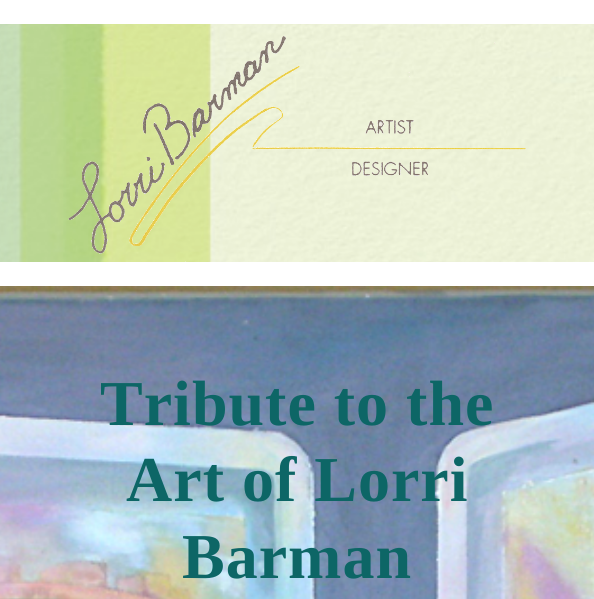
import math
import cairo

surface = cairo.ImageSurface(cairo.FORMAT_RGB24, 594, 599)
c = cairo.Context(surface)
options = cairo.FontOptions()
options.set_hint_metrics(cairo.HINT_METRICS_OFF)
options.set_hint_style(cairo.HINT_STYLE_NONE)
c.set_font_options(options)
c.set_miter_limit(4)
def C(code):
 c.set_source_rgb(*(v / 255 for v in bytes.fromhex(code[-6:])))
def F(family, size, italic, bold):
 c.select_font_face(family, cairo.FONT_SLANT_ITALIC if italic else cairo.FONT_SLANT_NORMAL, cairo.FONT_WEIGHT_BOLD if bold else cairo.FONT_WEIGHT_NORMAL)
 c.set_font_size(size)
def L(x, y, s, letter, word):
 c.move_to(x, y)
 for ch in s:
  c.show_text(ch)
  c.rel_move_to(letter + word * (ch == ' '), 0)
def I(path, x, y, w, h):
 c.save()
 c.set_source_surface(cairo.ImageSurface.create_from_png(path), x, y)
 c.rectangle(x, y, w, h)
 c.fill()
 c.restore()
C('ffffff')
c.paint()
I('1.png',0,24,594,238)
I('2.png',68,36,458,226)
I('3.png',0,286,594,313)
F('Liberation Serif',64,0,1)
C('0d6666')
L(100,425,'Tribute to the',1,0)
L(126,501,'Art of Lorri',1,0)
L(182,578,'Barman',1,0)
surface.write_to_png('o.png')
